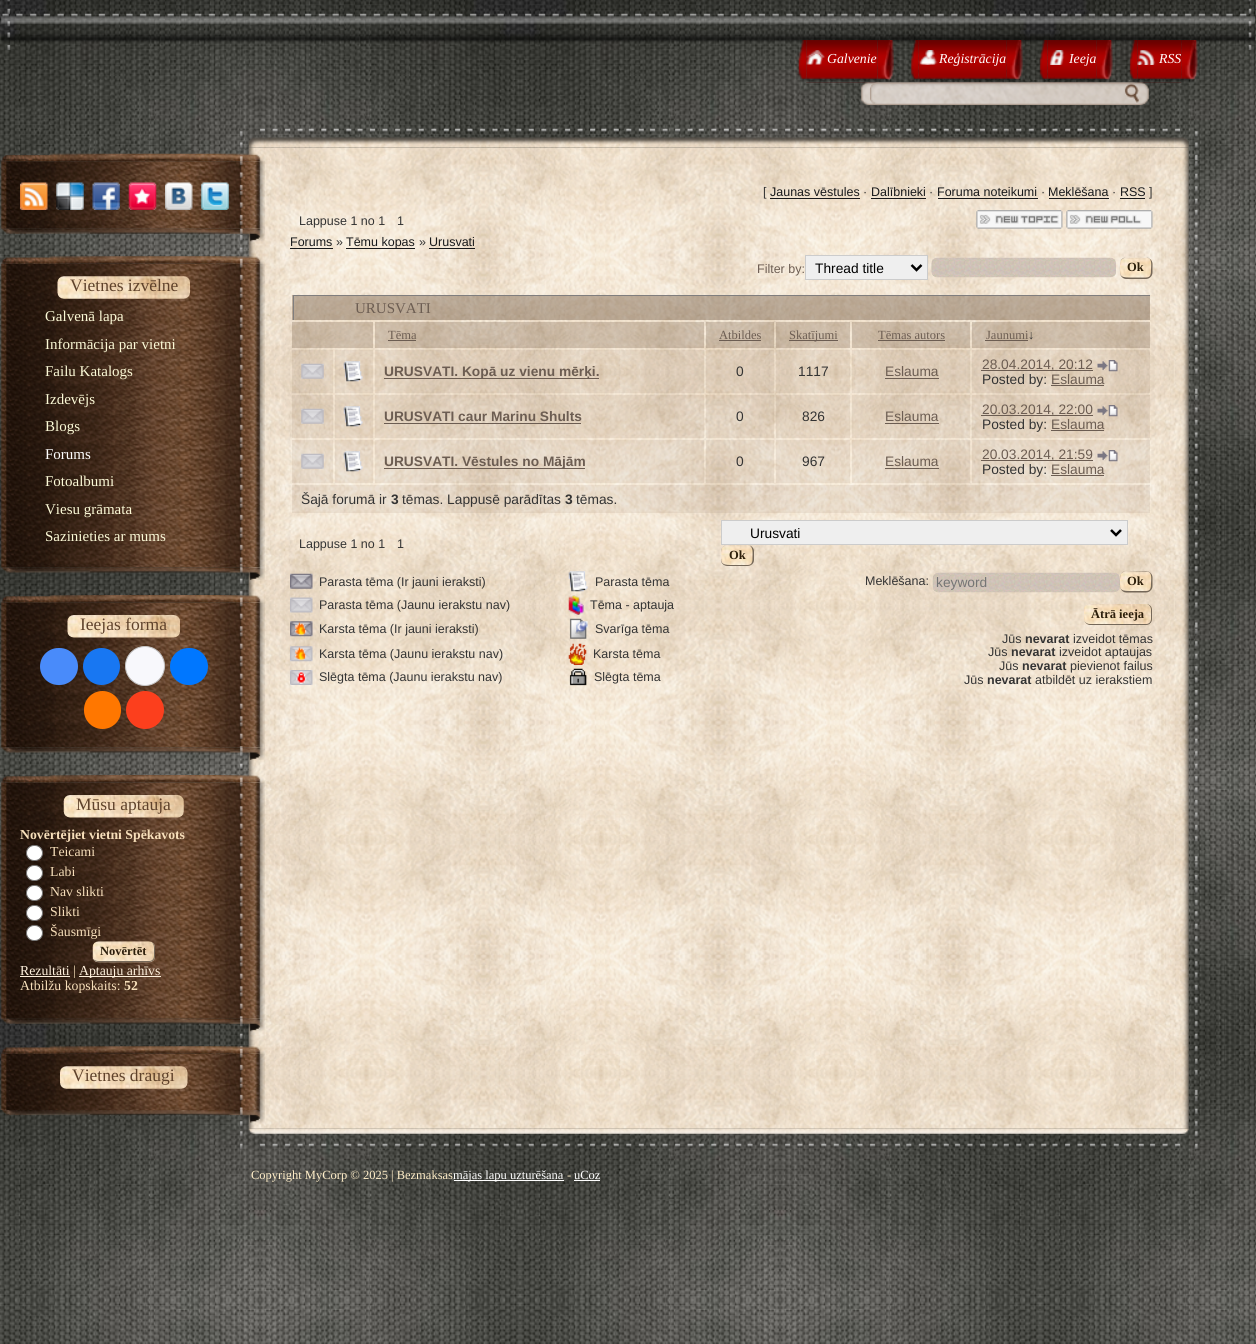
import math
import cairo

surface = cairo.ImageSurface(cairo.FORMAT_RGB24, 1256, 1344)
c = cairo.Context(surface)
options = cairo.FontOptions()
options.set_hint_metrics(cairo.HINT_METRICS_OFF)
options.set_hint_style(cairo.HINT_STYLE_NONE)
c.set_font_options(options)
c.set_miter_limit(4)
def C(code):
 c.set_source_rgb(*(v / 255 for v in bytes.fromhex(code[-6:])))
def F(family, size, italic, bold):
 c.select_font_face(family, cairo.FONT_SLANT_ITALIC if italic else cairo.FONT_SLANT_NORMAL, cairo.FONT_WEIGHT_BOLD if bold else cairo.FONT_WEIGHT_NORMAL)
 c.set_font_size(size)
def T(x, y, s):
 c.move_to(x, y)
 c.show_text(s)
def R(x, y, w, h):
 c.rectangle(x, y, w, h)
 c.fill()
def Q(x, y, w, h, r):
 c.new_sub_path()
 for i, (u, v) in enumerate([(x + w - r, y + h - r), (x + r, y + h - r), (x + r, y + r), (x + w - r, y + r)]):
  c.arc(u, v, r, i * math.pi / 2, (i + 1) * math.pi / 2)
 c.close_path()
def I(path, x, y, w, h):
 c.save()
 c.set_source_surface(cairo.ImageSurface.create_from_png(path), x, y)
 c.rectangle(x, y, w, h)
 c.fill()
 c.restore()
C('ffffff')
c.paint()
I('1.png',0,0,1256,1344)
I('2.png',1,0,1254,50)
I('3.png',798,40,9,42)
I('4.png',806,40,72,43)
I('5.png',806,50,19,15)
F('Liberation Serif',13.75,1,0)
C('ffffff')
T(827,63,'Galvenie')
I('6.png',877,40,17,42)
I('7.png',910,40,9,42)
I('8.png',918,40,89,43)
I('9.png',919,50,19,15)
T(939,63,'Reģistrācija')
I('10.png',1006,40,17,42)
I('11.png',1039,40,9,42)
I('12.png',1047,40,50,43)
I('13.png',1049,50,16,15)
T(1069,63,'Ieeja')
I('14.png',1096,40,17,42)
I('15.png',1129,40,9,42)
I('16.png',1137,40,45,43)
I('17.png',1137,50,19,15)
T(1159,63,'RSS')
I('18.png',1181,40,17,42)
I('19.png',861,82,277,23)
I('20.png',870,82,279,23)
I('22.png',239,147,960,982)
I('21.png',239,128,959,20)
I('24.png',1,161,264,68)
I('23.png',1,153,264,9)
I('25.png',20,182,28,28)
I('26.png',56,182,28,28)
I('27.png',92,182,28,28)
I('28.png',128,182,29,28)
I('29.png',165,182,28,28)
I('30.png',201,182,28,28)
I('31.png',2,228,263,14)
I('33.png',1,263,264,305)
I('32.png',1,256,264,8)
I('34.png',57,276,133,23)
F('Liberation Serif',17.5,0,0)
C('5f422b')
T(70,291,'Vietnes izvēlne')
F('Liberation Serif',15,0,0)
C('fcfad7')
T(45,321,'Galvenā lapa')
T(45,349,'Informācija par vietni')
T(45,376,'Failu Katalogs')
T(45,404,'Izdevējs')
T(45,431,'Blogs')
C('ffffff')
T(45,459,'Forums')
C('fcfad7')
T(45,486,'Fotoalbumi')
T(45,514,'Viesu grāmata')
T(45,541,'Sazinieties ar mums')
I('35.png',2,567,263,13)
I('37.png',1,602,264,146)
I('36.png',1,595,264,8)
I('38.png',67,615,113,23)
F('Liberation Serif',17.5,0,0)
C('5f422b')
T(80,630,'Ieejas forma')
C('498bfa')
Q(40,648,38,37,18.5)
c.fill()
C('1877f2')
c.arc(101.5,666.5,18.5,0,2 * math.pi)
c.fill()
C('f8f8fc')
c.arc(145,666,19.5,0,2 * math.pi)
c.fill_preserve()
C('c4c4c4')
c.set_line_width(1)
c.stroke()
C('0077ff')
Q(170,648,38,37,18.5)
c.fill()
C('ff7700')
Q(84,691,37,38,18.5)
c.fill()
C('fc3f1d')
c.arc(145,710,19,0,2 * math.pi)
c.fill()
I('39.png',2,747,263,13)
I('41.png',1,782,264,237)
I('40.png',1,775,264,8)
I('42.png',63,795,121,23)
C('5f422b')
T(76,810,'Mūsu aptauja')
F('Liberation Serif',13.75,0,1)
C('f7dfba')
T(20,839,'Novērtējiet vietni Spēkavots')
C('ffffff')
Q(26.5,845.5,16,15,7.5)
c.fill_preserve()
C('767676')
c.stroke()
F('Liberation Serif',13.75,0,0)
C('f7dfba')
T(50,856,'Teicami')
C('ffffff')
Q(26.5,865.5,16,15,7.5)
c.fill_preserve()
C('767676')
c.stroke()
C('f7dfba')
T(50,876,'Labi')
C('ffffff')
Q(26.5,885.5,16,15,7.5)
c.fill_preserve()
C('767676')
c.stroke()
C('f7dfba')
T(50,896,'Nav slikti')
C('ffffff')
Q(26.5,905.5,16,15,7.5)
c.fill_preserve()
C('767676')
c.stroke()
C('f7dfba')
T(50,916,'Slikti')
C('ffffff')
Q(26.5,925.5,16,15,7.5)
c.fill_preserve()
C('767676')
c.stroke()
C('f7dfba')
T(50,936,'Šausmīgi')
I('43.png',92,941,63,22)
C('756859')
c.set_fill_rule(cairo.FILL_RULE_EVEN_ODD)
c.new_path()
c.move_to(99,941)
c.line_to(149,941)
c.curve_to(152,941,155,944,155,948)
c.line_to(155,956)
c.curve_to(155,960,152,962,149,962)
c.line_to(99,962)
c.curve_to(95,962,92,960,92,956)
c.line_to(92,948)
c.curve_to(92,944,95,941,99,941)
c.close_path()
c.move_to(99,941)
c.line_to(149,941)
c.curve_to(152,941,154,944,154,948)
c.line_to(154,956)
c.curve_to(154,959,152,961,149,961)
c.line_to(99,961)
c.curve_to(95,961,92,959,92,956)
c.line_to(92,948)
c.curve_to(92,944,95,941,99,941)
c.close_path()
c.fill()
F('Liberation Serif',12.5,0,1)
C('2d1f0b')
T(100,955,'Novērtēt')
F('Liberation Serif',13.75,0,0)
C('fff1dd')
T(20,975,'Rezultāti')
R(20,976,50,1)
C('f7dfba')
T(73,975,'|')
C('fff1dd')
R(79,976,82,1)
T(79,975,'Aptauju arhīvs')
C('f7dfba')
T(20,990,'Atbilžu kopskaits:')
F('Liberation Serif',13.75,0,1)
T(124,990,'52')
I('44.png',2,1018,263,14)
I('46.png',1,1053,264,57)
I('45.png',1,1046,264,8)
I('47.png',59,1066,129,23)
F('Liberation Serif',17.5,0,0)
C('5f422b')
T(72,1081,'Vietnes draugi')
I('48.png',2,1110,263,13)
F('Liberation Sans',12.5,0,0)
C('333333')
T(763,196,'[')
C('18191b')
T(770,196,'Jaunas vēstules')
R(770,198,90,1)
C('333333')
T(863,196,'·')
C('18191b')
T(871,196,'Dalībnieki')
R(871,198,55,1)
C('333333')
T(929,196,'·')
C('18191b')
T(937,196,'Foruma noteikumi')
R(938,198,100,1)
C('333333')
T(1041,196,'·')
C('18191b')
T(1048,196,'Meklēšana')
R(1049,198,60,1)
C('333333')
T(1112,196,'·')
C('18191b')
T(1120,196,'RSS')
R(1120,198,25,1)
C('333333')
T(1149,196,']')
T(299,225,'Lappuse 1 no 1')
T(397,225,'1')
I('49.png',976,210,87,19)
I('50.png',1066,210,87,19)
C('18191b')
T(290,246,'Forums')
R(290,248,43,1)
C('333333')
T(336,246,'»')
C('18191b')
R(346,248,69,1)
T(346,246,'Tēmu kopas')
C('333333')
T(419,246,'»')
C('18191b')
T(429,246,'Urusvati')
R(429,248,46,1)
C('6c5d52')
T(757,273,'Filter by:')
C('efefef')
c.rectangle(805.5,255.5,122,24)
c.fill_preserve()
C('cccccc')
c.stroke()
c.new_path()
c.move_to(911.5,265)
c.line_to(916.5,270)
c.line_to(921.5,265)
C('000000')
c.set_line_width(2.5)
c.stroke()
F('Liberation Sans',13.75,0,0)
T(815,273,'Thread title')
I('51.png',931,257,185,21)
I('52.png',1120,257,33,22)
C('756859')
c.new_path()
c.move_to(1126,257.5)
c.line_to(1146,257.5)
c.curve_to(1149.5,257.5,1152.5,260.5,1152.5,264)
c.line_to(1152.5,272.5)
c.curve_to(1152.5,276,1149.5,279,1146,279)
c.line_to(1126,279)
c.curve_to(1123,279,1120,276,1120,272.5)
c.line_to(1120,264)
c.curve_to(1120,260.5,1123,257.5,1126,257.5)
c.close_path()
c.move_to(1126,257.5)
c.line_to(1147.5,257.5)
c.curve_to(1152.5,259,1151,266,1151,269.5)
c.curve_to(1151,273.5,1151,277.5,1146,277.5)
c.line_to(1129.5,277.5)
c.curve_to(1118.5,277.5,1120,274.5,1120,265)
c.curve_to(1120,261,1121.5,257.5,1126,257.5)
c.close_path()
c.fill()
F('Liberation Serif',12.5,0,1)
C('2d1f0b')
T(1127,271,'Ok')
c.set_source_rgba(0.38,0.278,0.196,0.38)
R(292,295,858,25)
c.save()
c.set_fill_rule(cairo.FILL_RULE_WINDING)
c.rectangle(293,295,857,25)
c.clip()
C('807e7e')
c.set_fill_rule(cairo.FILL_RULE_EVEN_ODD)
c.new_path()
c.move_to(169,171)
c.line_to(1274,171)
c.line_to(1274,444)
c.line_to(169,444)
c.close_path()
c.move_to(294,296)
c.line_to(1151,296)
c.line_to(1151,321)
c.line_to(294,321)
c.close_path()
c.fill()
c.restore()
F('Liberation Serif',15,0,0)
C('6c5d52')
T(355,313,'URUSVATI')
c.set_source_rgba(0.376,0.278,0.196,0.24)
R(292,322,81,26)
R(375,322,329,26)
F('Liberation Serif',12.5,0,0)
C('6c5d52')
T(388,339,'Tēma')
R(388,340,28,1)
c.set_source_rgba(0.376,0.278,0.196,0.24)
R(706,322,68,26)
C('6c5d52')
T(719,339,'Atbildes')
R(719,340,42,1)
c.set_source_rgba(0.376,0.278,0.196,0.24)
R(776,322,74,26)
C('6c5d52')
R(789,340,49,1)
T(789,339,'Skatījumi')
c.set_source_rgba(0.376,0.278,0.196,0.24)
R(852,322,118,26)
C('6c5d52')
T(878,339,'Tēmas autors')
R(878,340,67,1)
c.set_source_rgba(0.376,0.278,0.196,0.24)
R(972,322,178,26)
C('6c5d52')
T(986,339,'Jaunumi')
R(985,340,43,1)
C('333333')
T(1028,339,'↓')
c.set_source_rgba(0.392,0.263,0.216,0.09)
R(292,350,41,43)
I('53.png',301,363,23,16)
R(335,350,38,43)
I('54.png',343,361,20,21)
R(375,350,329,43)
C('6c5d52')
R(384,378,215,1)
F('Liberation Sans',13.75,0,1)
T(384,376,'URUSVATI. Kopā uz vienu mērķi.')
c.set_source_rgba(0.392,0.263,0.216,0.09)
R(706,350,68,43)
F('Liberation Sans',13.75,0,0)
C('333333')
T(736,376,'0')
c.set_source_rgba(0.392,0.263,0.216,0.09)
R(776,350,74,43)
C('333333')
T(798,376,'1117')
c.set_source_rgba(0.392,0.263,0.216,0.09)
R(852,350,118,43)
C('6c5d52')
T(885,376,'Eslauma')
R(885,378,54,1)
c.set_source_rgba(0.392,0.263,0.216,0.09)
R(972,350,178,43)
C('6c5d52')
R(981,370,112,1)
T(982,369,'28.04.2014, 20:12')
I('55.png',1097,360,21,12)
C('333333')
T(982,384,'Posted by:')
C('6c5d52')
T(1051,384,'Eslauma')
R(1051,385,53,1)
c.set_source_rgba(0.392,0.263,0.216,0.09)
R(292,395,41,43)
I('56.png',301,408,23,16)
R(335,395,38,43)
I('57.png',343,406,20,21)
R(375,395,329,43)
F('Liberation Sans',13.75,0,1)
C('6c5d52')
T(384,421,'URUSVATI caur Marinu Shults')
R(384,423,197,1)
c.set_source_rgba(0.392,0.263,0.216,0.09)
R(706,395,68,43)
F('Liberation Sans',13.75,0,0)
C('333333')
T(736,421,'0')
c.set_source_rgba(0.392,0.263,0.216,0.09)
R(776,395,74,43)
C('333333')
T(802,421,'826')
c.set_source_rgba(0.392,0.263,0.216,0.09)
R(852,395,118,43)
C('6c5d52')
T(885,421,'Eslauma')
R(885,423,54,1)
c.set_source_rgba(0.392,0.263,0.216,0.09)
R(972,395,178,43)
C('6c5d52')
R(981,415,112,1)
T(982,414,'20.03.2014, 22:00')
I('58.png',1097,405,21,12)
C('333333')
T(982,429,'Posted by:')
C('6c5d52')
T(1051,429,'Eslauma')
R(1051,430,53,1)
c.set_source_rgba(0.392,0.263,0.216,0.09)
R(292,440,41,43)
I('59.png',301,453,23,16)
R(335,440,38,43)
I('60.png',343,451,20,21)
R(375,440,329,43)
C('6c5d52')
R(384,468,201,1)
F('Liberation Sans',13.75,0,1)
T(384,466,'URUSVATI. Vēstules no Mājām')
c.set_source_rgba(0.392,0.263,0.216,0.09)
R(706,440,68,43)
F('Liberation Sans',13.75,0,0)
C('333333')
T(736,466,'0')
c.set_source_rgba(0.392,0.263,0.216,0.09)
R(776,440,74,43)
C('333333')
T(802,466,'967')
c.set_source_rgba(0.392,0.263,0.216,0.09)
R(852,440,118,43)
C('6c5d52')
T(885,466,'Eslauma')
R(885,468,54,1)
c.set_source_rgba(0.392,0.263,0.216,0.09)
R(972,440,178,43)
C('6c5d52')
R(981,460,112,1)
T(982,459,'20.03.2014, 21:59')
I('61.png',1097,450,21,12)
C('333333')
T(982,474,'Posted by:')
C('6c5d52')
T(1051,474,'Eslauma')
R(1051,475,53,1)
c.set_source_rgba(0.392,0.263,0.216,0.09)
R(292,485,858,28)
C('333333')
T(301,504,'Šajā forumā ir')
F('Liberation Sans',13.75,0,1)
T(391,504,'3')
F('Liberation Sans',13.75,0,0)
T(402,504,'tēmas. Lappusē parādītas')
F('Liberation Sans',13.75,0,1)
T(565,504,'3')
F('Liberation Sans',13.75,0,0)
T(576,504,'tēmas.')
F('Liberation Sans',12.5,0,0)
T(299,548,'Lappuse 1 no 1')
T(397,548,'1')
C('efefef')
c.rectangle(721.5,520.5,406,24)
c.fill_preserve()
C('cccccc')
c.set_line_width(1)
c.stroke()
c.new_path()
c.move_to(1111,530)
c.line_to(1116,535)
c.line_to(1121,530)
C('000000')
c.set_line_width(2.5)
c.stroke()
F('Liberation Sans',13.75,0,0)
T(750,538,'Urusvati')
I('62.png',721,545,33,21)
C('756859')
c.new_path()
c.move_to(727.5,545)
c.line_to(747.5,545)
c.curve_to(751,545,754,548,754,551)
c.line_to(754,560)
c.curve_to(754,563.5,751,566,747.5,566)
c.line_to(727.5,566)
c.curve_to(724,566,721,563.5,721,560)
c.line_to(721,551)
c.curve_to(721,548,724,545,727.5,545)
c.close_path()
c.move_to(727.5,545)
c.line_to(748.5,545)
c.curve_to(753.5,546.5,752.5,553.5,752.5,557)
c.curve_to(752.5,561,752.5,565,747.5,565)
c.line_to(731,565)
c.curve_to(720,565,721,562,721,552.5)
c.curve_to(721,548.5,723,545,727.5,545)
c.close_path()
c.fill()
F('Liberation Serif',12.5,0,1)
C('2d1f0b')
T(729,559,'Ok')
I('63.png',290,573,23,16)
F('Liberation Sans',12.5,0,0)
C('333333')
T(319,586,'Parasta tēma (Ir jauni ieraksti)')
I('64.png',568,571,20,21)
T(595,586,'Parasta tēma')
I('65.png',290,597,23,16)
T(319,609,'Parasta tēma (Jaunu ierakstu nav)')
I('66.png',568,595,16,20)
T(590,609,'Tēma - aptauja')
I('67.png',290,621,23,16)
T(319,633,'Karsta tēma (Ir jauni ieraksti)')
I('68.png',569,618,19,21)
T(595,633,'Svarīga tēma')
I('69.png',290,646,23,16)
T(319,658,'Karsta tēma (Jaunu ierakstu nav)')
I('70.png',568,643,19,22)
T(593,658,'Karsta tēma')
I('71.png',290,670,23,15)
T(319,681,'Slēgta tēma (Jaunu ierakstu nav)')
I('72.png',569,668,18,18)
T(594,681,'Slēgta tēma')
T(865,585,'Meklēšana:')
I('73.png',932,572,188,21)
F('Liberation Sans',13.75,0,0)
C('757575')
T(936,587,'keyword')
I('74.png',1120,571,33,22)
C('756859')
c.new_path()
c.move_to(1126,571)
c.line_to(1146,571)
c.curve_to(1149.5,571,1152.5,574,1152.5,577.5)
c.line_to(1152.5,586)
c.curve_to(1152.5,589.5,1149.5,592.5,1146,592.5)
c.line_to(1126,592.5)
c.curve_to(1123,592.5,1120,589.5,1120,586)
c.line_to(1120,577.5)
c.curve_to(1120,574,1123,571,1126,571)
c.close_path()
c.move_to(1126,571)
c.line_to(1147.5,571.5)
c.curve_to(1152.5,572.5,1151,579.5,1151,583.5)
c.curve_to(1151,587,1151,591,1146,591)
c.line_to(1129.5,591)
c.curve_to(1118.5,591,1120,588,1120,579)
c.curve_to(1120,575,1121.5,571,1126,571)
c.close_path()
c.fill()
F('Liberation Serif',12.5,0,1)
C('2d1f0b')
T(1127,585,'Ok')
I('75.png',1084,604,69,21)
C('756859')
c.new_path()
c.move_to(1090,604)
c.line_to(1146,604)
c.curve_to(1150,604,1152,607,1152,610)
c.line_to(1152,619)
c.curve_to(1152,622,1150,625,1146,625)
c.line_to(1090,625)
c.curve_to(1087,625,1084,622,1084,619)
c.line_to(1084,610)
c.curve_to(1084,607,1087,604,1090,604)
c.close_path()
c.move_to(1090,604)
c.line_to(1146,604)
c.curve_to(1149,604,1151,607,1151,610)
c.line_to(1151,619)
c.curve_to(1151,622,1149,624,1146,624)
c.line_to(1090,624)
c.curve_to(1087,624,1084,622,1084,619)
c.line_to(1084,610)
c.curve_to(1084,607,1087,604,1090,604)
c.close_path()
c.fill()
C('2d1f0b')
T(1091,618,'Ātrā ieeja')
F('Liberation Sans',12.5,0,0)
C('333333')
T(1002,643,'Jūs')
F('Liberation Sans',12.5,0,1)
T(1025,643,'nevarat')
F('Liberation Sans',12.5,0,0)
T(1073,643,'izveidot tēmas')
T(988,656,'Jūs')
F('Liberation Sans',12.5,0,1)
T(1011,656,'nevarat')
F('Liberation Sans',12.5,0,0)
T(1059,656,'izveidot aptaujas')
T(999,670,'Jūs')
F('Liberation Sans',12.5,0,1)
T(1022,670,'nevarat')
F('Liberation Sans',12.5,0,0)
T(1070,670,'pievienot failus')
T(964,684,'Jūs')
F('Liberation Sans',12.5,0,1)
T(987,684,'nevarat')
F('Liberation Sans',12.5,0,0)
T(1035,684,'atbildēt uz ierakstiem')
I('76.png',239,1128,959,21)
F('Liberation Serif',12.5,0,0)
C('ffeec8')
T(251,1179,'Copyright MyCorp © 2025 | Bezmaksas')
C('ffffff')
R(454,1180,110,1)
T(453,1179,'mājas lapu uzturēšana')
C('ffeec8')
T(567,1179,'-')
C('ffffff')
T(574,1179,'uCoz')
R(574,1180,26,1)
surface.write_to_png('o.png')
